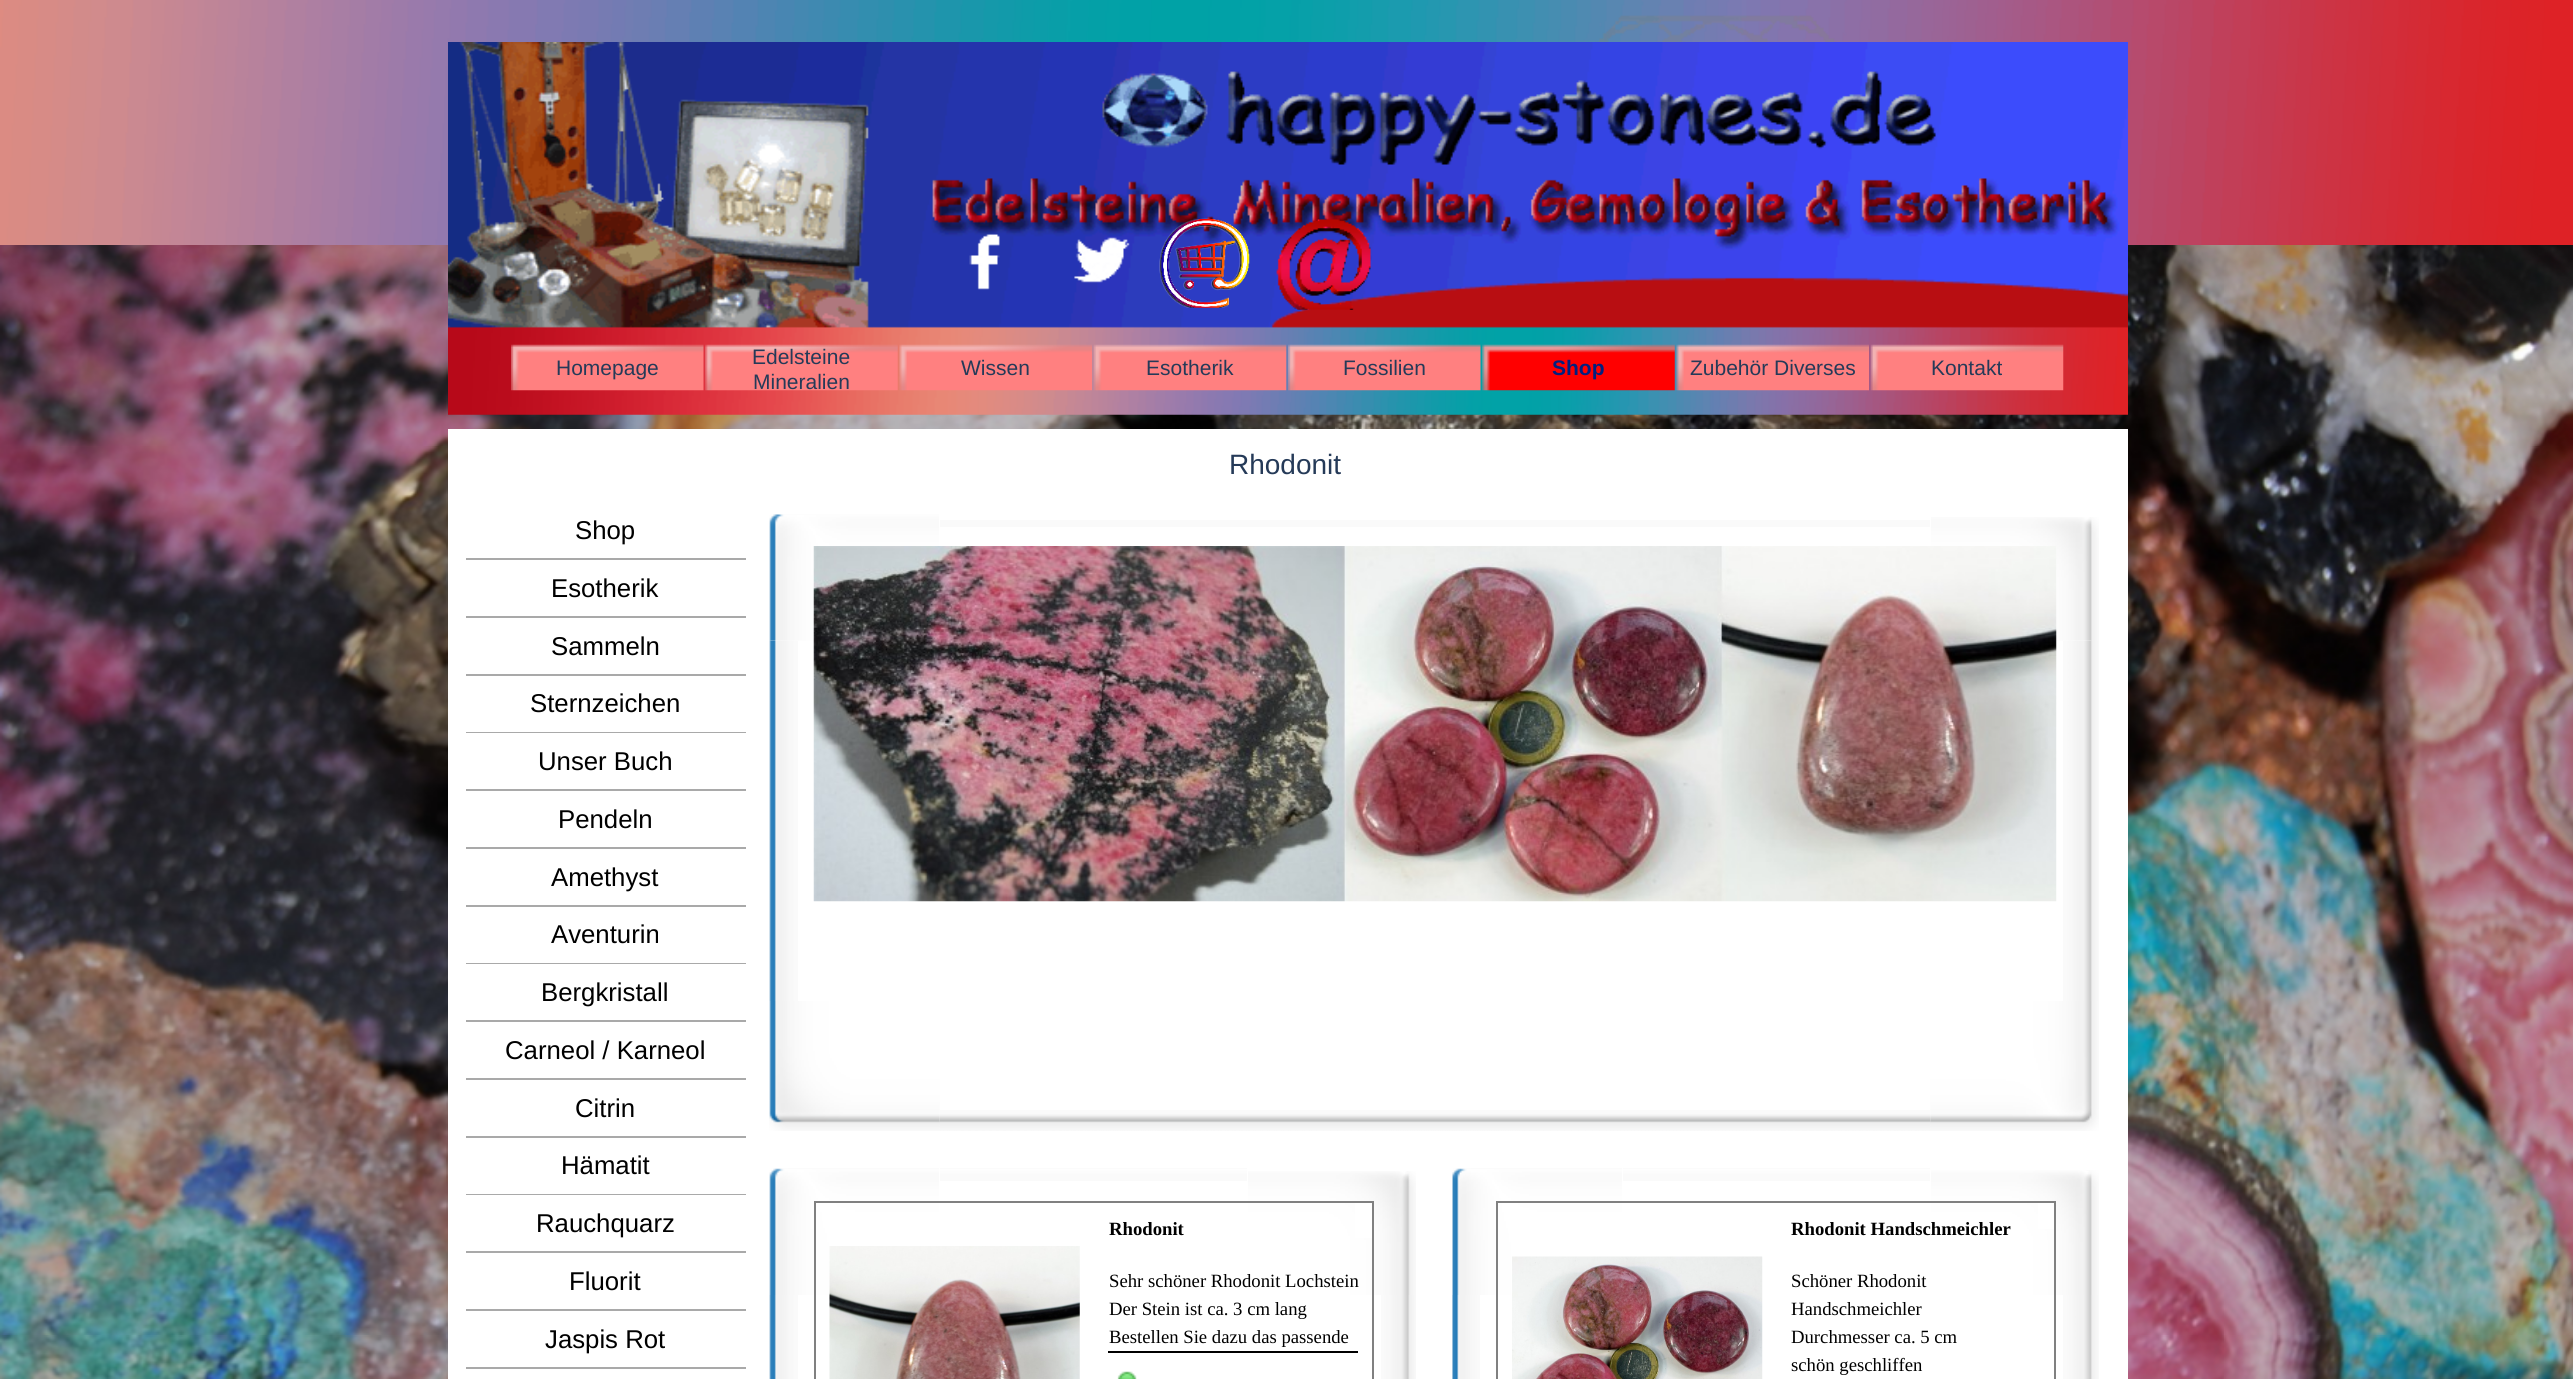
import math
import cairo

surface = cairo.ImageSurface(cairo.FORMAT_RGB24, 2573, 1379)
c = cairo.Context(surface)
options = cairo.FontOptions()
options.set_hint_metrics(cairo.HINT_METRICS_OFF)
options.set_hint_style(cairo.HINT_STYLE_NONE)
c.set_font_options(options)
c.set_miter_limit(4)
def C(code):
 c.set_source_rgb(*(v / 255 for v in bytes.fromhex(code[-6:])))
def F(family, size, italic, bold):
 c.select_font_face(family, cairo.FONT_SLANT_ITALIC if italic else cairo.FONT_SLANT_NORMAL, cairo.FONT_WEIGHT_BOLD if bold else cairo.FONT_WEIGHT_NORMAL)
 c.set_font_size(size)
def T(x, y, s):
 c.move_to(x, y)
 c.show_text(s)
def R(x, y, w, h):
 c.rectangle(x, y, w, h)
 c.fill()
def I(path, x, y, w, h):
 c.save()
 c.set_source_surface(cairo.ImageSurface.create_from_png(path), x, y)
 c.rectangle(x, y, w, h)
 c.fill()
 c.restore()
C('ffffff')
c.paint()
I('1.png',0,245,2573,1134)
I('2.png',0,0,2573,245)
I('3.png',448,42,1680,373)
I('4.png',969,234,31,56)
I('5.png',1074,237,56,46)
I('6.png',1159,218,91,90)
I('7.png',1276,219,96,91)
I('8.png',511,344,193,47)
F('Liberation Sans',21,0,0)
C('253a58')
T(556,375,'Homepage')
I('9.png',705,344,193,47)
T(752,364,'Edelsteine')
T(753,389,'Mineralien')
I('10.png',899,344,193,47)
T(961,375,'Wissen')
I('11.png',1093,344,194,47)
T(1146,375,'Esotherik')
I('12.png',1288,344,193,47)
T(1343,375,'Fossilien')
I('13.png',1482,344,193,47)
F('Liberation Sans',21,0,1)
C('002080')
T(1552,375,'Shop')
I('14.png',1676,344,193,47)
F('Liberation Sans',21,0,0)
C('253a58')
T(1690,375,'Zubehör Diverses')
I('15.png',1870,344,194,47)
T(1931,375,'Kontakt')
C('ffffff')
R(448,429,1680,950)
F('Liberation Sans',28,0,0)
C('253a58')
T(1229,474,'Rhodonit')
C('a9a9a9')
R(466,558,280,2)
F('Liberation Sans',25.75,0,0)
C('000000')
T(575,539,'Shop')
C('a9a9a9')
R(466,616,280,2)
C('000000')
T(551,597,'Esotherik')
C('a9a9a9')
R(466,674,280,2)
C('000000')
T(551,655,'Sammeln')
C('a9a9a9')
R(466,732,280,1)
C('000000')
T(530,712,'Sternzeichen')
C('a9a9a9')
R(466,789,280,2)
C('000000')
T(538,770,'Unser Buch')
C('a9a9a9')
R(466,847,280,2)
C('000000')
T(558,828,'Pendeln')
C('a9a9a9')
R(466,905,280,2)
C('000000')
T(551,886,'Amethyst')
C('a9a9a9')
R(466,963,280,1)
C('000000')
T(551,943,'Aventurin')
C('a9a9a9')
R(466,1020,280,2)
C('000000')
T(541,1001,'Bergkristall')
C('a9a9a9')
R(466,1078,280,2)
C('000000')
T(505,1059,'Carneol / Karneol')
C('a9a9a9')
R(466,1136,280,2)
C('000000')
T(575,1117,'Citrin')
C('a9a9a9')
R(466,1194,280,1)
C('000000')
T(561,1174,'Hämatit')
C('a9a9a9')
R(466,1251,280,2)
C('000000')
T(536,1232,'Rauchquarz')
C('a9a9a9')
R(466,1309,280,2)
C('000000')
T(569,1290,'Fluorit')
C('a9a9a9')
R(466,1367,280,2)
C('000000')
T(545,1348,'Jaspis Rot')
I('16.png',769,514,170,127)
C('fafafa')
R(940,520,990,7)
I('17.png',1931,517,168,124)
I('18.png',769,640,29,361)
I('19.png',2063,640,36,361)
I('21.png',939,1110,992,21)
I('20.png',769,1001,171,130)
I('22.png',1930,1001,169,130)
I('23.png',813,546,1244,356)
I('24.png',769,1168,170,127)
I('25.png',940,1168,307,13)
I('26.png',1248,1171,168,124)
I('27.png',769,1295,29,84)
I('28.png',1381,1295,35,84)
C('ffffff')
R(1355,1203,17,35)
c.rectangle(815,1202,558,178)
C('808080')
c.stroke()
F('Liberation Serif',18.7,0,1)
C('000000')
T(1109,1235,'Rhodonit')
I('29.png',829,1246,251,133)
F('Liberation Serif',18.7,0,0)
T(1109,1287,'Sehr schöner Rhodonit Lochstein')
T(1109,1315,'Der Stein ist ca. 3 cm lang')
T(1109,1343,'Bestellen Sie dazu das passende')
R(1108,1351,250,2)
I('30.png',1117,1371,20,8)
I('31.png',1452,1168,170,127)
I('25.png',1623,1168,307,13)
I('32.png',1931,1170,168,125)
I('33.png',1452,1295,28,84)
I('34.png',2063,1295,36,84)
C('ffffff')
R(2038,1203,16,26)
c.rectangle(1497,1202,558,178)
C('808080')
c.stroke()
F('Liberation Serif',18.7,0,1)
C('000000')
T(1791,1235,'Rhodonit Handschmeichler')
I('35.png',1512,1256,251,123)
F('Liberation Serif',18.7,0,0)
T(1791,1287,'Schöner Rhodonit')
T(1791,1315,'Handschmeichler')
T(1791,1343,'Durchmesser ca. 5 cm')
T(1791,1371,'schön geschliffen')
surface.write_to_png('o.png')
